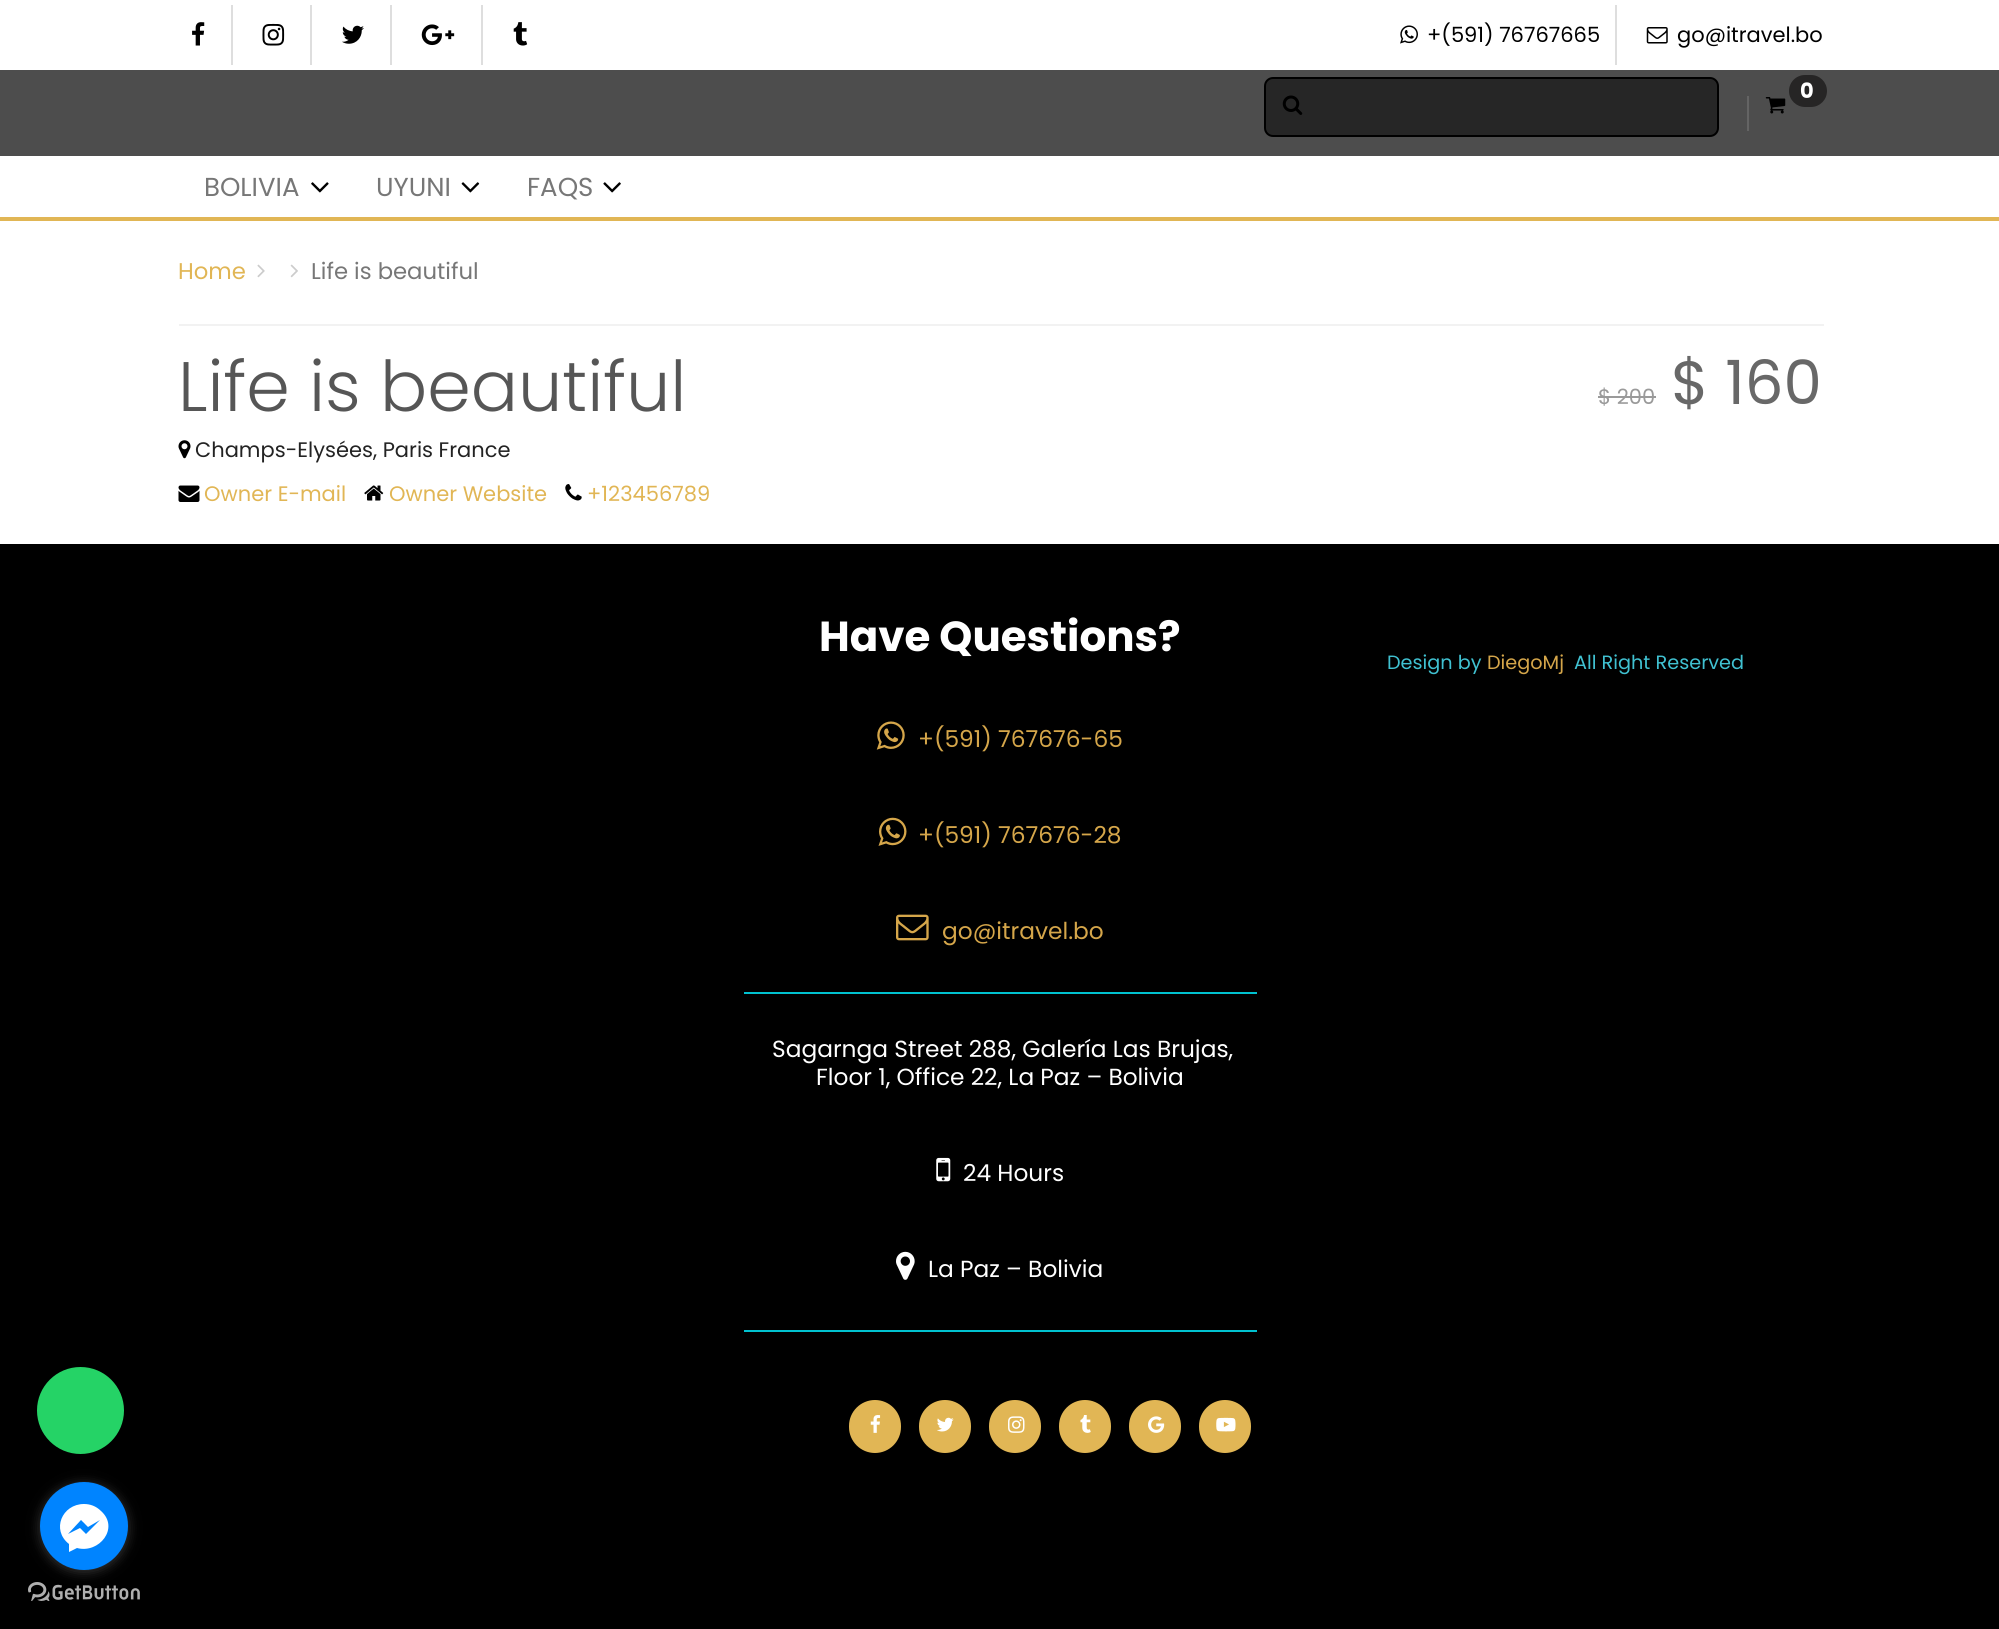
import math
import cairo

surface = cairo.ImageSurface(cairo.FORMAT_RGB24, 1999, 1629)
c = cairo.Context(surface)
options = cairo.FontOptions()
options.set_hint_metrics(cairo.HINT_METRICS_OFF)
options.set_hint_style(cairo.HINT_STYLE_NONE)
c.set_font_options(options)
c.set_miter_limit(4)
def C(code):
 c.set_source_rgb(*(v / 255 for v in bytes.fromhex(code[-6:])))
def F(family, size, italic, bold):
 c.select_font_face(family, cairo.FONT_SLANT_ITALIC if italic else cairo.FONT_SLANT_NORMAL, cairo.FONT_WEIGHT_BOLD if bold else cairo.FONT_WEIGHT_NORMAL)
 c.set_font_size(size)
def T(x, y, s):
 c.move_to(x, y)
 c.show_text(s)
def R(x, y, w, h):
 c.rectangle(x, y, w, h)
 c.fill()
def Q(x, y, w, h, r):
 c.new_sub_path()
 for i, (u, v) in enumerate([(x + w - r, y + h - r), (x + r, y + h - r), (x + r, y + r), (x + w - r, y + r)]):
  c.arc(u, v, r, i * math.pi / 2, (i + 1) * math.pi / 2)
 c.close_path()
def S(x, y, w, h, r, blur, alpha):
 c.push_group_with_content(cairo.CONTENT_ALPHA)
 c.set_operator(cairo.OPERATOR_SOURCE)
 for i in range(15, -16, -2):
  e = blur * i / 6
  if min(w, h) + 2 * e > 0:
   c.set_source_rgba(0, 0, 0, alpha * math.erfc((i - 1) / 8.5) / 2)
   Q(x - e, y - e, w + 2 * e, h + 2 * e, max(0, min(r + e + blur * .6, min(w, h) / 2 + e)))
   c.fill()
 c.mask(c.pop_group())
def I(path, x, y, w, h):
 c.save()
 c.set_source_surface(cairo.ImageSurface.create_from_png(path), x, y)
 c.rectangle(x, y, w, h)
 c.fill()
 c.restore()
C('ffffff')
c.paint()
C('dedede')
R(231,5,2,60)
I('1.png',192,22,13,24)
R(310,5,2,60)
I('2.png',262,23,23,23)
R(390,5,2,60)
I('3.png',342,25,22,19)
R(481,5,2,60)
I('4.png',421,24,34,22)
I('5.png',513,22,15,24)
I('6.png',1400,25,18,19)
F('Poppins',21,0,0)
C('000000')
T(1427,42,'+(591) 76767665')
C('dedede')
R(1615,5,2,60)
I('7.png',1646,27,22,17)
C('000000')
T(1677,42,'go@itravel.bo')
C('4d4d4d')
R(0,70,1999,86)
C('262626')
Q(1265,78,453,58,8)
c.fill_preserve()
C('000000')
c.stroke()
I('8.png',1282,95,21,20)
C('646464')
R(1747,96,2,35)
C('262525')
Q(1789,75,38,32,16)
c.fill()
F('Poppins',21,0,1)
C('ffffff')
T(1800,98,'0')
I('9.png',1765,97,21,17)
C('e1b655')
R(0,217,1999,4)
F('Poppins',26,0,0)
C('777777')
T(204,196,'BOLIVIA')
I('10.png',311,182,18,11)
T(376,196,'UYUNI')
I('11.png',461,182,19,11)
T(527,196,'FAQS')
I('12.png',603,182,18,11)
F('Poppins',22.75,0,0)
C('e1b655')
T(178,279,'Home')
I('13.png',257,264,8,14)
I('14.png',290,264,8,14)
C('777777')
T(311,279,'Life is beautiful')
C('f2f2f2')
R(179,324,1645,2)
F('Poppins Light',70,0,0)
C('565656')
T(178,411,'Life is beautiful')
I('15.png',178,440,13,19)
F('Poppins',21,0,0)
C('232323')
T(195,457,'Champs-Elysées, Paris France')
I('16.png',178,485,22,17)
C('e1b655')
T(204,501,'Owner E-mail')
I('17.png',364,485,20,16)
T(389,501,'Owner Website')
I('18.png',565,484,17,17)
T(587,501,'+123456789')
C('9a9a9a')
T(1598,404,'$ 200')
R(1598,396,58,2)
F('Poppins',61,0,0)
C('686868')
T(1671,404,'$ 160')
C('000000')
R(0,544,1999,1085)
F('Poppins',42,0,1)
C('ffffff')
T(819,651,'Have Questions?')
I('19.png',876,721,29,29)
F('Poppins',23.3,0,0)
C('d5a64a')
T(918,747,'+(591) 767676-65')
I('20.png',878,817,29,29)
T(918,843,'+(591) 767676-28')
I('21.png',896,914,33,27)
T(942,939,'go@itravel.bo')
C('00c1cf')
R(744,992,513,2)
C('ffffff')
T(772,1057,'Sagarnga Street 288, Galería Las Brujas,')
T(816,1085,'Floor 1, Office 22, La Paz – Bolivia')
I('22.png',936,1157,15,25)
T(963,1181,'24 Hours')
I('23.png',896,1251,19,29)
T(928,1277,'La Paz – Bolivia')
C('00c1cf')
R(744,1330,513,2)
C('e1b655')
Q(849,1400,52,53,26)
c.fill()
I('24.png',870,1415,11,18)
Q(919,1400,52,53,26)
c.fill()
I('25.png',937,1417,17,15)
Q(989,1400,52,53,26)
c.fill()
I('26.png',1008,1416,17,17)
Q(1059,1400,52,53,26)
c.fill()
I('27.png',1080,1415,11,18)
Q(1129,1400,52,53,26)
c.fill()
I('28.png',1148,1416,17,17)
Q(1199,1400,52,53,26)
c.fill()
I('29.png',1216,1417,20,15)
F('Poppins',19.25,0,0)
C('40c1d1')
T(1387,669,'Design by')
C('d5a64a')
T(1487,669,'DiegoMj')
C('40c1d1')
T(1574,669,'All Right Reserved')
C('25d366')
c.new_path()
c.arc(80.5,1410.5,43.5,0,2 * math.pi)
c.fill()
I('30.png',28,1582,112,19)
C('888888')
S(40,1484,88,88,44,6,.4)
C('0084ff')
c.arc(84,1526,44,0,2 * math.pi)
c.fill()
C('ffffff')
c.new_path()
c.move_to(84,1504)
c.curve_to(62,1504,51,1530,69,1544)
c.line_to(69,1552)
c.line_to(77,1548)
c.curve_to(99,1554,120,1528,101,1511)
c.curve_to(96,1506,90,1504,84,1504)
c.close_path()
c.move_to(86,1534)
c.line_to(80,1528)
c.line_to(68,1534)
c.line_to(81,1520)
c.line_to(88,1527)
c.line_to(100,1520)
c.close_path()
c.fill()
surface.write_to_png('o.png')
